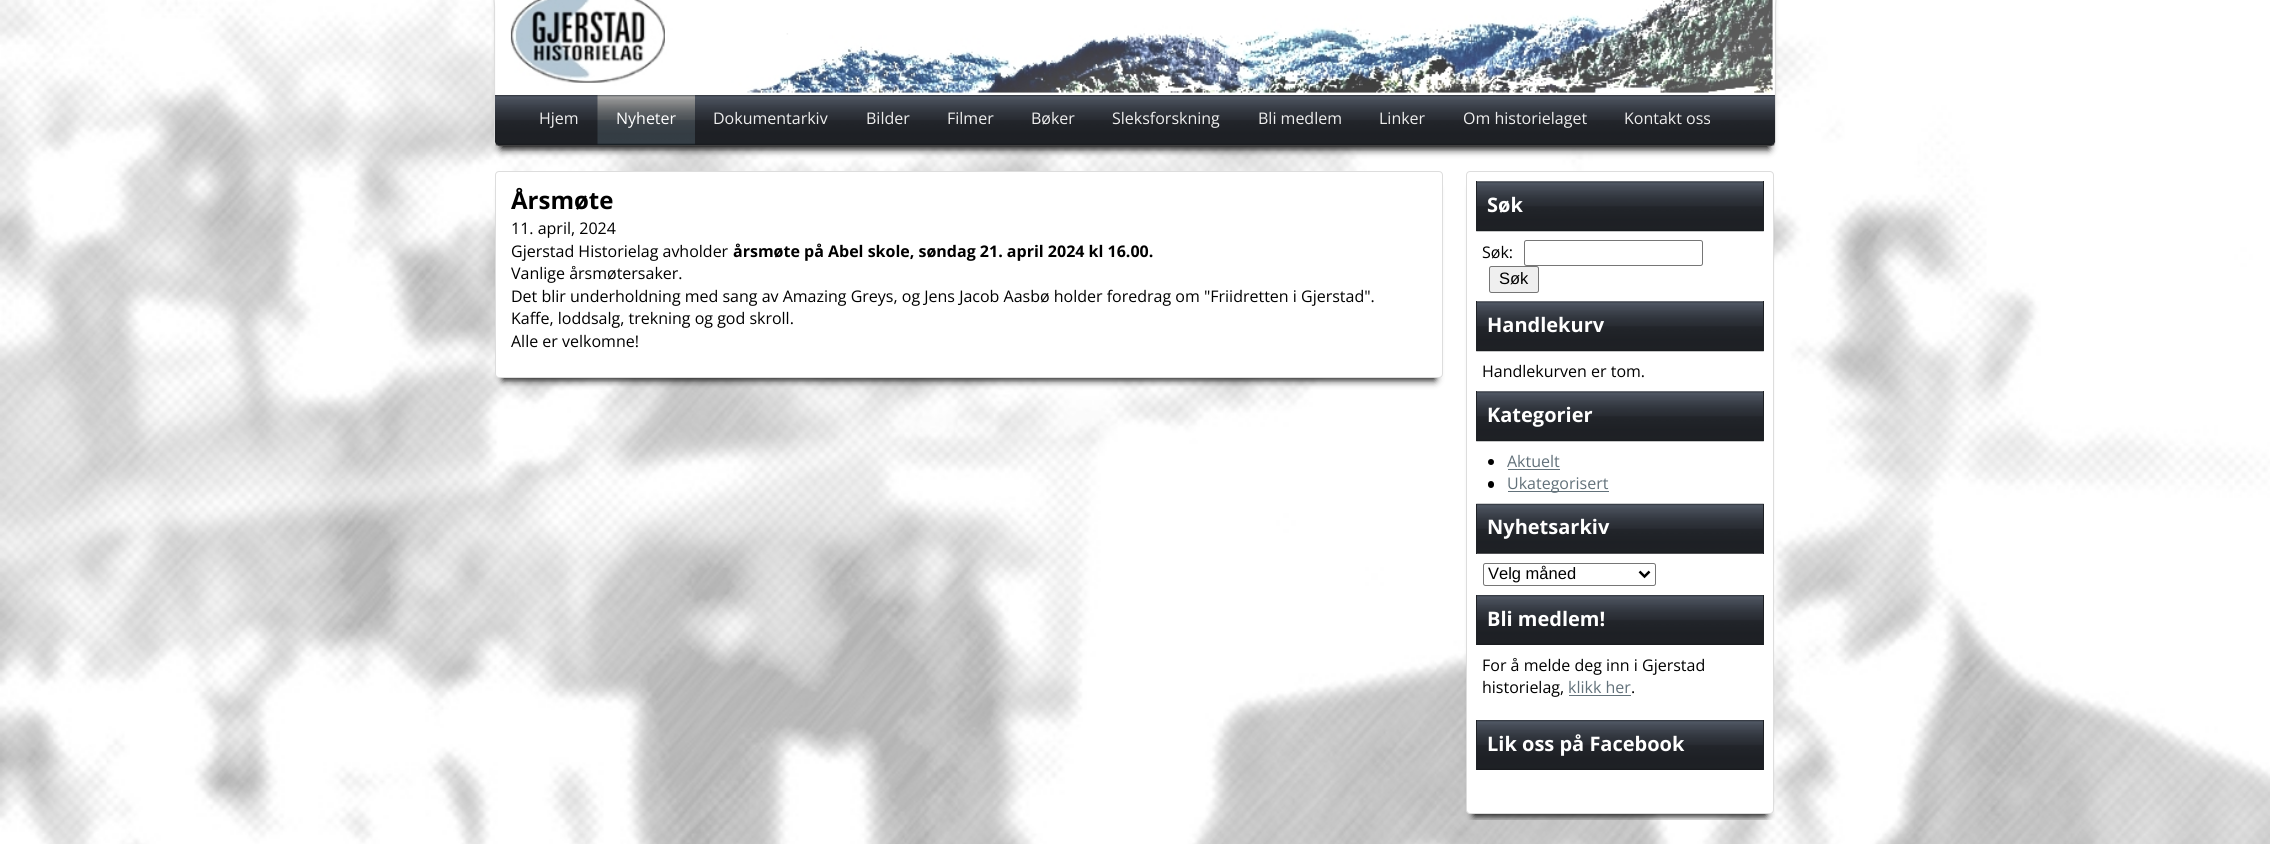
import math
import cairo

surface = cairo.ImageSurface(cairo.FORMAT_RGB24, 2270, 844)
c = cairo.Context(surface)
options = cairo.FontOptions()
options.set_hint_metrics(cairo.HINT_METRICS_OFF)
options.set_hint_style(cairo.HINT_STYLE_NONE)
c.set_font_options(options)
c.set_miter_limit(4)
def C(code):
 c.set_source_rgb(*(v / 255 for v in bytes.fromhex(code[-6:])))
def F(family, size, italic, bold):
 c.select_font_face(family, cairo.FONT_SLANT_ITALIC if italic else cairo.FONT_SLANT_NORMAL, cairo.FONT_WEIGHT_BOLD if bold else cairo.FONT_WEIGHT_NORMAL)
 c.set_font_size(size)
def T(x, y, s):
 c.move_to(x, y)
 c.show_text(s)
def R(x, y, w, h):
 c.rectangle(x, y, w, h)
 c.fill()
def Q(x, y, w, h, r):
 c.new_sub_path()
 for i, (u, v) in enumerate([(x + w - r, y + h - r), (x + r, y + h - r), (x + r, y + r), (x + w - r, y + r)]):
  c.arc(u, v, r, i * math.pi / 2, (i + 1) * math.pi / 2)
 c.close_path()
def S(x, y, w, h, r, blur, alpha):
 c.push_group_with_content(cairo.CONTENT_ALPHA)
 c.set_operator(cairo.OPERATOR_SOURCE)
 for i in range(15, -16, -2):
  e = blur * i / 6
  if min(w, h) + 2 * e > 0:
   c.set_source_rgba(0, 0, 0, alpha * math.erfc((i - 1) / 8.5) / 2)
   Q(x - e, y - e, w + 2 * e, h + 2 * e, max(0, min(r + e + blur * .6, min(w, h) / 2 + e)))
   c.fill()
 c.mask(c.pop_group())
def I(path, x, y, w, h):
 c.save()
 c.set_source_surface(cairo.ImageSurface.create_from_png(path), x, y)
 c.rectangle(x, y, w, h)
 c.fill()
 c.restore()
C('ffffff')
c.paint()
I('1.png',0,0,2270,844)
C('000000')
S(501,-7,1268,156,0,4,1)
C('ffffff')
Q(494,-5,1282,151,5)
c.fill()
c.new_path()
c.move_to(1774.5,144.5)
c.line_to(1771,145.5)
c.line_to(499,145.5)
c.line_to(495.5,144.5)
C('404040')
c.set_line_width(1.2)
c.stroke()
c.new_path()
c.move_to(495.5,144.5)
c.line_to(494.5,141)
c.line_to(494.5,7)
c.curve_to(494.5,-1,490,-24.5,499,-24.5)
c.line_to(1771,-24.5)
c.curve_to(1780,-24.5,1775.5,-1,1775.5,7)
c.line_to(1775.5,141)
c.line_to(1774.5,144.5)
C('dddddd')
c.stroke()
I('2.png',510,0,1263,94)
I('3.png',495,95,1280,50)
F('Open Sans',16,0,0)
C('eeeeee')
T(539,124,'Hjem')
I('4.png',597,95,98,50)
C('ffffff')
T(616,124,'Nyheter')
C('eeeeee')
T(713,124,'Dokumentarkiv')
T(866,124,'Bilder')
T(947,124,'Filmer')
T(1031,124,'Bøker')
T(1112,124,'Sleksforskning')
T(1258,124,'Bli medlem')
T(1379,124,'Linker')
T(1463,124,'Om historielaget')
T(1624,124,'Kontakt oss')
C('000000')
S(503,189,932,191,0,4,1)
C('ffffff')
Q(495.5,171.5,947,206,3.5)
c.fill_preserve()
C('dddddd')
c.set_line_width(1)
c.stroke()
F('Open Sans',24,0,1)
C('000000')
T(511,209,'Årsmøte')
F('Open Sans',16,0,0)
T(511,234,'11. april, 2024')
T(511,257,'Gjerstad Historielag avholder')
F('Open Sans',16,0,1)
T(733,257,'årsmøte på Abel skole, søndag 21. april 2024 kl 16.00.')
F('Open Sans',16,0,0)
T(511,279,'Vanlige årsmøtersaker.')
T(511,302,'Det blir underholdning med sang av Amazing Greys, og Jens Jacob Aasbø holder foredrag om "Friidretten i Gjerstad".')
T(511,324,'Kaffe, loddsalg, trekning og god skroll.')
T(511,347,'Alle er velkomne!')
c.save()
c.rectangle(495,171,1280,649)
c.clip()
C('000000')
S(1474,189,292,627,0,4,1)
c.restore()
C('ffffff')
Q(1466.5,171.5,307,642,3.5)
c.fill_preserve()
C('dddddd')
c.stroke()
I('5.png',1476,181,288,51)
C('1e2125')
R(1763,181,1,50)
R(1476,181,1,50)
F('Open Sans',20,0,1)
C('ffffff')
T(1487,212,'Søk')
F('Open Sans',16,0,0)
C('000000')
T(1482,258,'Søk:')
Q(1524.5,240.5,178,25,2)
C('767676')
c.stroke()
C('efefef')
Q(1489.5,266.5,49,26,2)
c.fill_preserve()
C('767676')
c.stroke()
F('Liberation Sans',16.5,0,0)
C('000000')
T(1499,284,'Søk')
I('6.png',1476,301,288,51)
C('1e2125')
R(1763,301,1,50)
R(1476,301,1,50)
F('Open Sans',20,0,1)
C('ffffff')
T(1487,332,'Handlekurv')
F('Open Sans',16,0,0)
C('000000')
T(1482,377,'Handlekurven er tom.')
I('7.png',1476,391,288,51)
C('1e2125')
R(1763,391,1,50)
R(1476,391,1,50)
F('Open Sans',20,0,1)
C('ffffff')
T(1487,422,'Kategorier')
C('000000')
c.new_path()
c.arc(1491,462,3,0,2 * math.pi)
c.fill()
F('Open Sans',16,0,0)
C('62717a')
T(1507,467,'Aktuelt')
R(1508,469,52,1)
C('000000')
Q(1488,481,6,7,3)
c.fill()
C('62717a')
R(1508,491,101,1)
T(1507,489,'Ukategorisert')
I('8.png',1476,503,288,51)
C('1e2125')
R(1763,504,1,50)
R(1476,504,1,50)
F('Open Sans',20,0,1)
C('ffffff')
T(1487,534,'Nyhetsarkiv')
Q(1483.5,563.5,172,22,2)
C('767676')
c.stroke()
c.new_path()
c.move_to(1639.5,571.5)
c.line_to(1644.5,576.5)
c.line_to(1649.5,571.5)
C('000000')
c.set_line_width(2.5)
c.stroke()
F('Liberation Sans',16.5,0,0)
T(1488,579,'Velg måned')
I('9.png',1477,595,286,50)
C('1e2125')
R(1763,595,1,50)
R(1476,595,1,50)
F('Open Sans',20,0,1)
C('ffffff')
T(1487,626,'Bli medlem!')
F('Open Sans',16,0,0)
C('000000')
T(1482,671,'For å melde deg inn i Gjerstad')
T(1482,693,'historielag,')
C('62717a')
T(1568,693,'klikk her')
R(1569,695,62,1)
C('000000')
T(1631,693,'.')
I('10.png',1477,720,286,50)
C('1e2125')
R(1763,720,1,50)
R(1476,720,1,50)
F('Open Sans',20,0,1)
C('ffffff')
T(1487,751,'Lik oss på Facebook')
surface.write_to_png('o.png')
